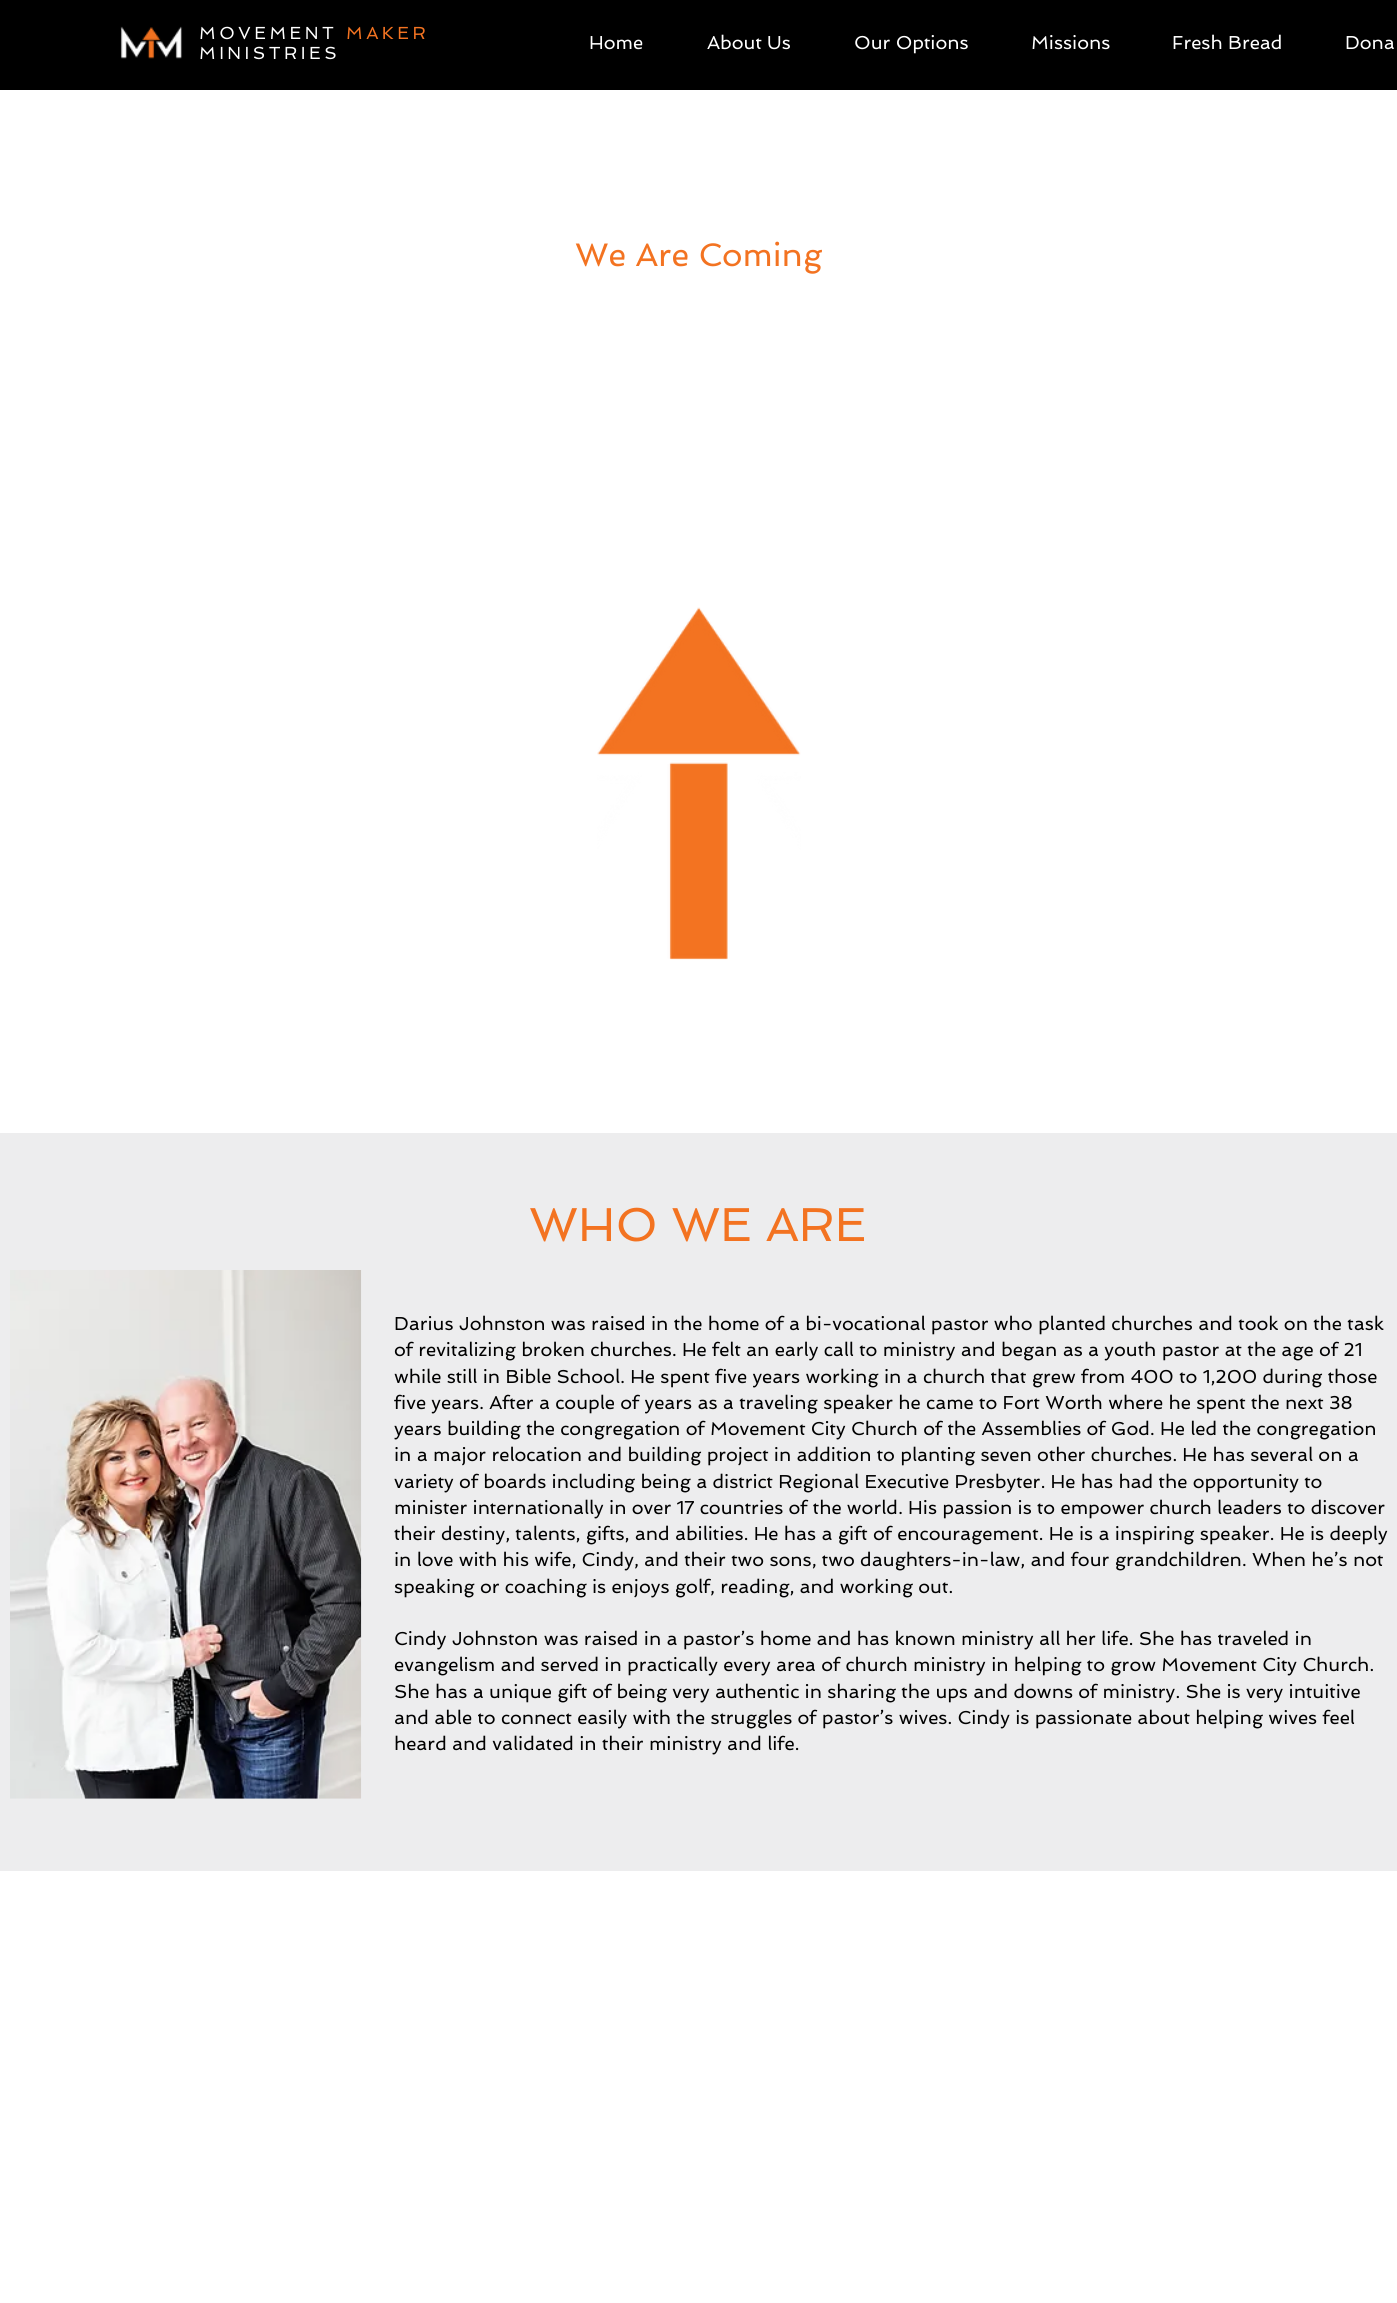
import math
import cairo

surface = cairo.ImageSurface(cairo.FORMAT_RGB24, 1397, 2303)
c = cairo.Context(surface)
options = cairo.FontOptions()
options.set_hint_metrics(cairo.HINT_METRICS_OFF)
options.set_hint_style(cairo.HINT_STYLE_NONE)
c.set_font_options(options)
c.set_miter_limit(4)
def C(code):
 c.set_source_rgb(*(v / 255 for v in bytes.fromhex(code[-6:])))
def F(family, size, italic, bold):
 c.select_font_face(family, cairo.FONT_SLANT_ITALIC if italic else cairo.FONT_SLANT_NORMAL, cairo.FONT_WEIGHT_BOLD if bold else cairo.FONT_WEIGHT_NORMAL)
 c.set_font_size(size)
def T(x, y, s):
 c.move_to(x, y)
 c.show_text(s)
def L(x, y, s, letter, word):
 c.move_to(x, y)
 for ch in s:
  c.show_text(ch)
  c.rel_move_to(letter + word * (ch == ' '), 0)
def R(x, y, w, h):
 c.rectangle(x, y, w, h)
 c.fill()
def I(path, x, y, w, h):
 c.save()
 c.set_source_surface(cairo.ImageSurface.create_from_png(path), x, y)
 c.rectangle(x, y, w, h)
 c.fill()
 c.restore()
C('ffffff')
c.paint()
C('000000')
R(0,0,1397,90)
I('1.png',120,26,63,33)
F('Spinnaker',17.5,0,0)
C('ffffff')
L(199,39,'MOVEMENT',3.5,0)
C('f37321')
L(346,39,'MAKER',3.5,0)
C('ffffff')
L(199,59,'MINISTRIES',3.5,0)
F('Spinnaker',18.75,0,0)
T(589,49,'Home')
T(707,49,'About Us')
T(854,49,'Our Options')
T(1031,49,'Missions')
T(1172,49,'Fresh Bread')
T(1345,49,'Dona')
F('Spinnaker',32.5,0,0)
C('f37321')
T(575,266,'We Are Coming')
I('2.png',597,607,204,353)
C('ededee')
R(0,1133,1397,738)
F('Spinnaker',47.5,0,0)
C('f37321')
T(529,1241,'WHO WE ARE')
I('3.png',10,1270,352,529)
F('Spinnaker',18.75,0,0)
C('000000')
T(394,1330,'Darius Johnston was raised in the home of a bi-vocational pastor who planted churches and took on the task')
T(394,1356,'of revitalizing broken churches. He felt an early call to ministry and began as a youth pastor at the age of 21')
T(394,1383,'while still in Bible School. He spent five years working in a church that grew from 400 to 1,200 during those')
T(394,1409,'five years. After a couple of years as a traveling speaker he came to Fort Worth where he spent the next 38')
T(394,1435,'years building the congregation of Movement City Church of the Assemblies of God. He led the congregation')
T(394,1461,'in a major relocation and building project in addition to planting seven other churches. He has several on a')
T(394,1488,'variety of boards including being a district Regional Executive Presbyter. He has had the opportunity to')
T(394,1514,'minister internationally in over 17 countries of the world. His passion is to empower church leaders to discover')
T(394,1540,'their destiny, talents, gifts, and abilities. He has a gift of encouragement. He is a inspiring speaker. He is deeply')
T(394,1566,'in love with his wife, Cindy, and their two sons, two daughters-in-law, and four grandchildren. When he’s not')
T(394,1593,'speaking or coaching is enjoys golf, reading, and working out.')
T(394,1645,'Cindy Johnston was raised in a pastor’s home and has known ministry all her life. She has traveled in')
T(394,1671,'evangelism and served in practically every area of church ministry in helping to grow Movement City Church.')
T(394,1698,'She has a unique gift of being very authentic in sharing the ups and downs of ministry. She is very intuitive')
T(394,1724,'and able to connect easily with the struggles of pastor’s wives. Cindy is passionate about helping wives feel')
T(394,1750,'heard and validated in their ministry and life.')
surface.write_to_png('o.png')
